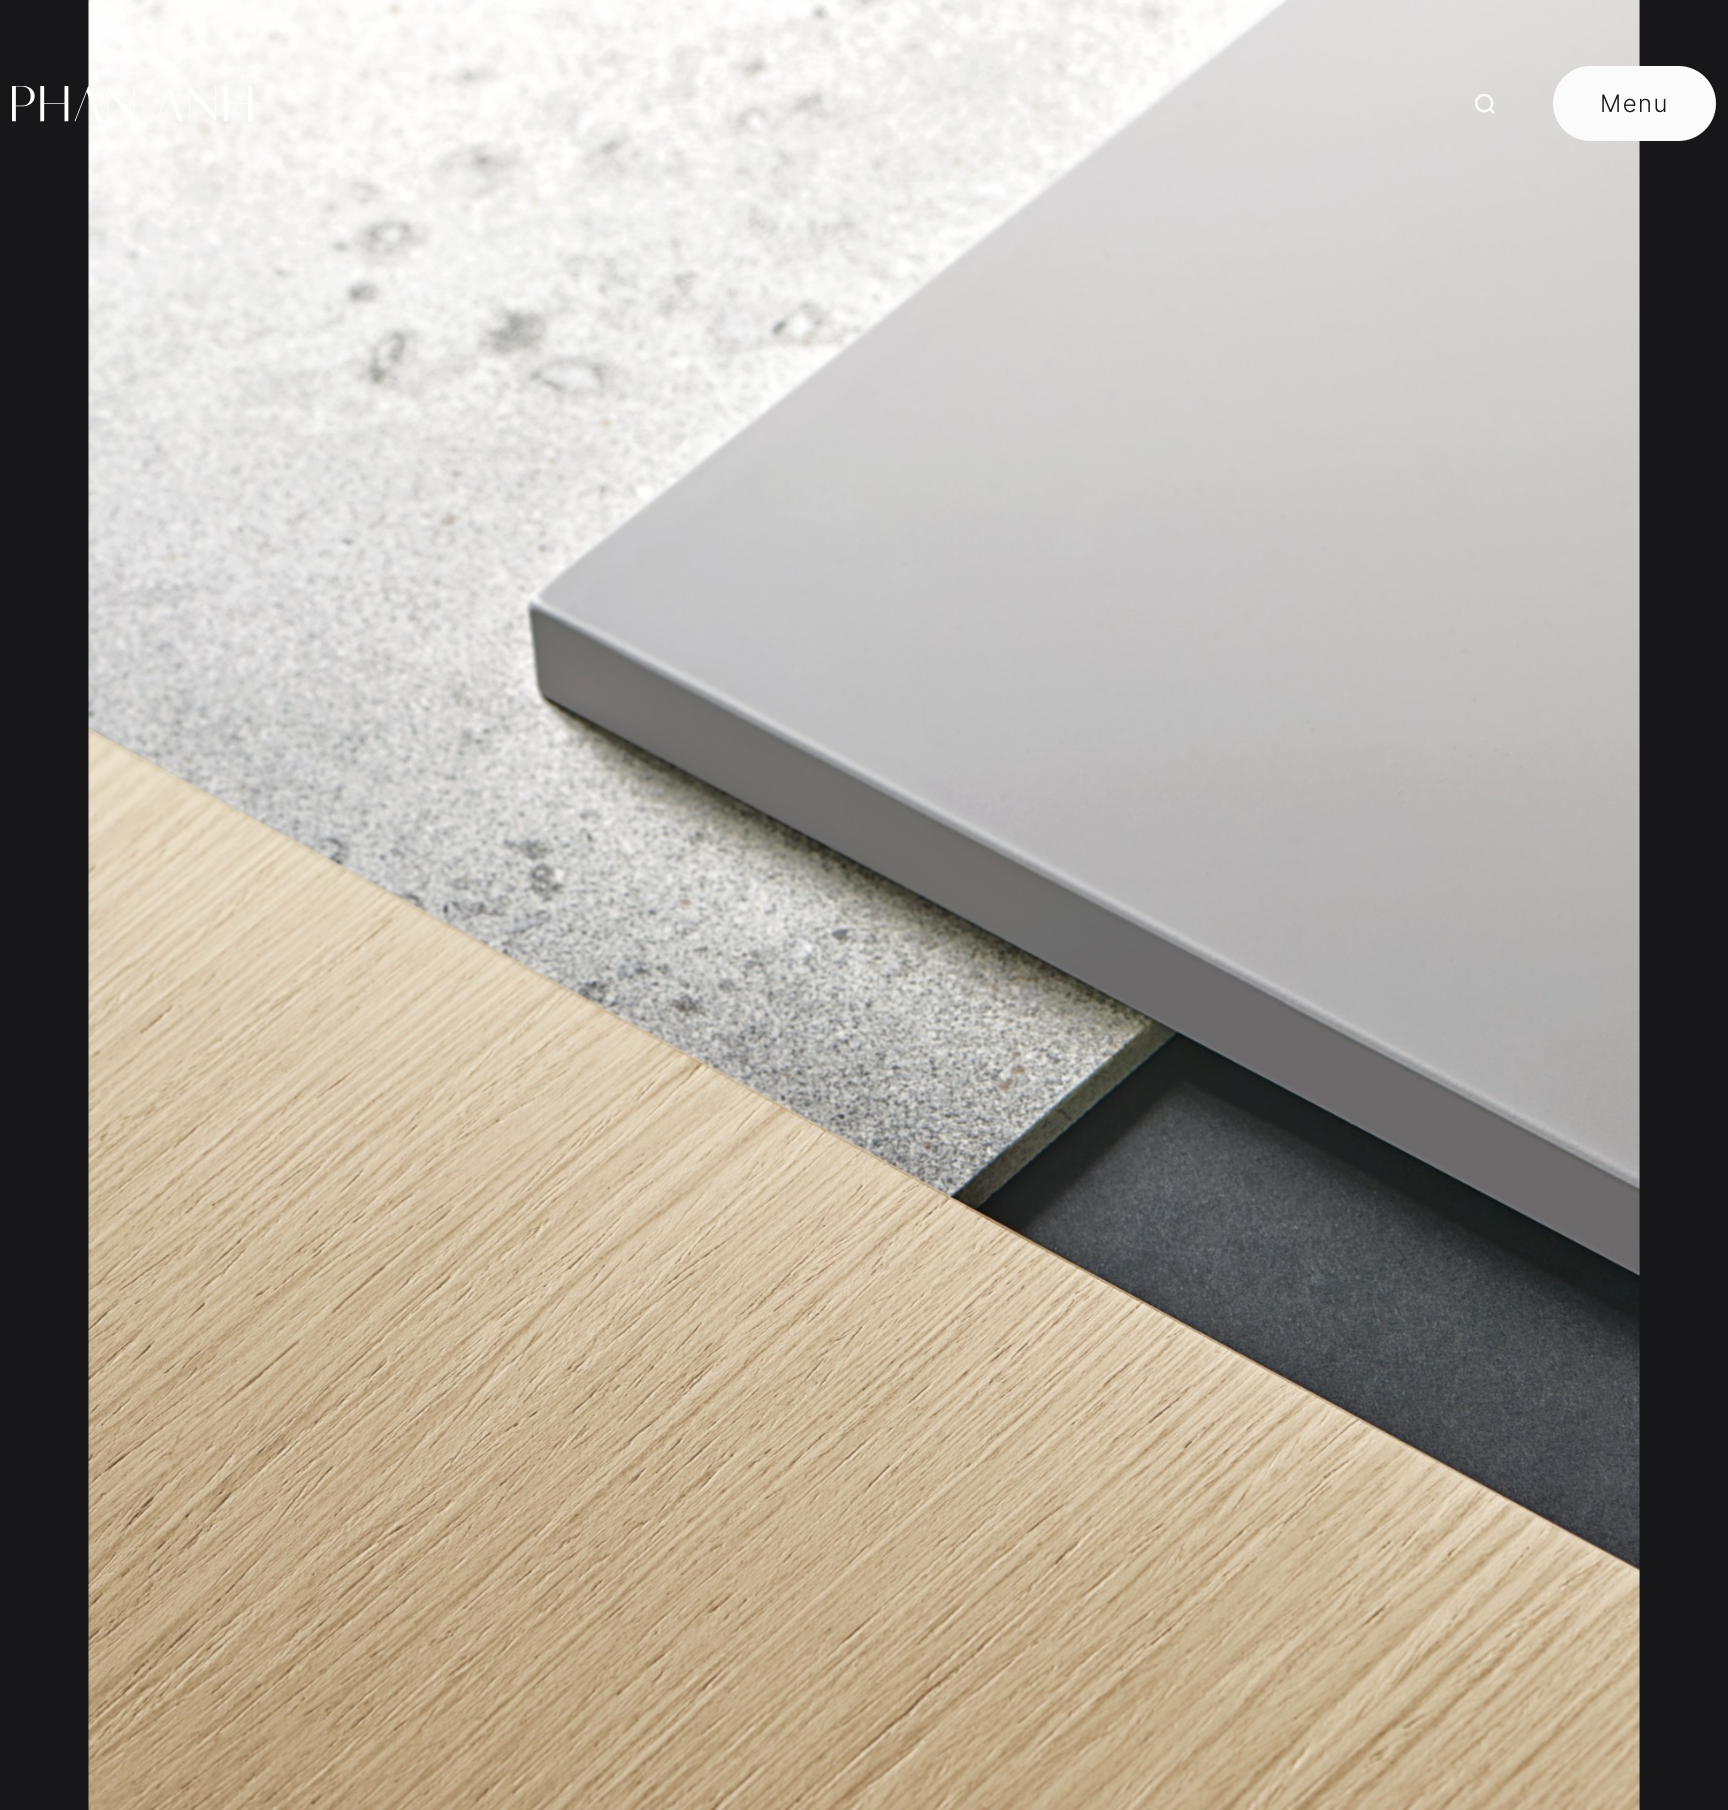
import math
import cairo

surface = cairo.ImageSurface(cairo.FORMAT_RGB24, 1728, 1810)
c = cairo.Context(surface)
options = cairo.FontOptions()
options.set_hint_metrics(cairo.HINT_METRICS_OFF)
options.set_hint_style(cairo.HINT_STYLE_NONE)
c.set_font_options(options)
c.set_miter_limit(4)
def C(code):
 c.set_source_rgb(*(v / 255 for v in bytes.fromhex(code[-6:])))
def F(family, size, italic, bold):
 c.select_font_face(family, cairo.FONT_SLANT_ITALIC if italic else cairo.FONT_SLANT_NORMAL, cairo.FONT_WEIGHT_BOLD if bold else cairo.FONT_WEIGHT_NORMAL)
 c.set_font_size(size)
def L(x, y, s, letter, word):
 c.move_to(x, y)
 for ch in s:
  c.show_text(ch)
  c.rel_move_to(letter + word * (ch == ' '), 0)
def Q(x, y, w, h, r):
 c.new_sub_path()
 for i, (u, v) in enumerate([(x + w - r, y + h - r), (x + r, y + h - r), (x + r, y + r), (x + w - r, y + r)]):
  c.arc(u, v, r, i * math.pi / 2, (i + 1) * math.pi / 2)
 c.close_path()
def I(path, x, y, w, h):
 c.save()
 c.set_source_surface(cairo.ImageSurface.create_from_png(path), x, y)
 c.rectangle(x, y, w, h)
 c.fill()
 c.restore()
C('171719')
c.paint()
I('1.png',88,0,1552,1810)
I('2.png',12,86,240,36)
I('3.png',1475,94,20,20)
C('fbfbfb')
Q(1554,67,161,73,36.5)
c.fill_preserve()
c.stroke()
F('Inter Light',24,0,0)
C('171719')
L(1600,112,'Menu',1.5,0)
surface.write_to_png('o.png')
